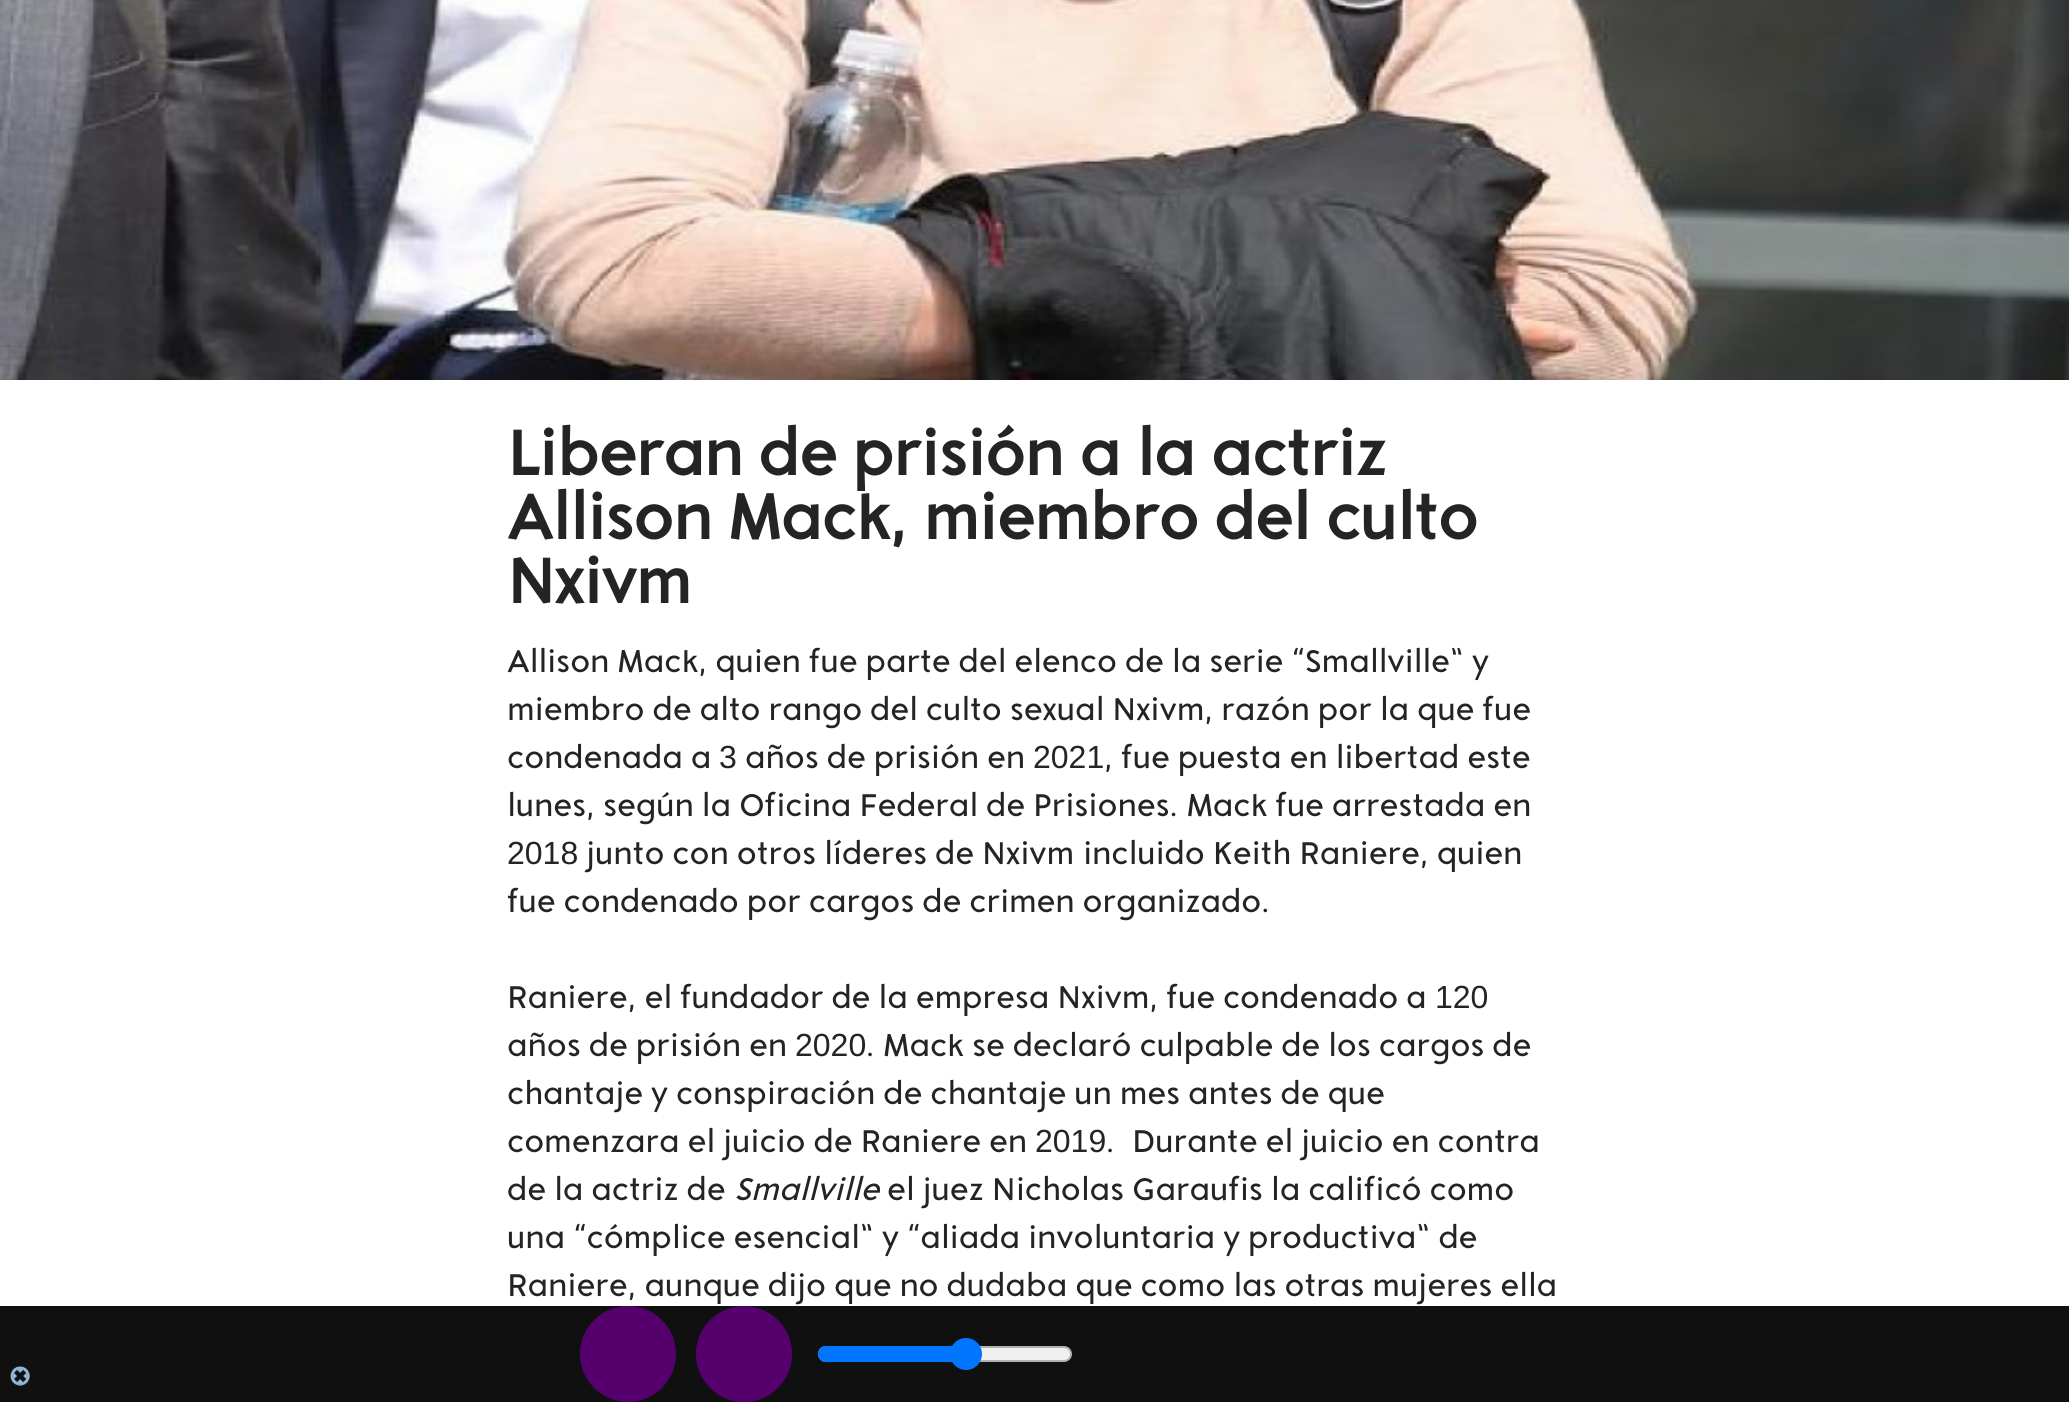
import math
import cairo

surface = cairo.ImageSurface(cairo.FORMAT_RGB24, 2069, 1402)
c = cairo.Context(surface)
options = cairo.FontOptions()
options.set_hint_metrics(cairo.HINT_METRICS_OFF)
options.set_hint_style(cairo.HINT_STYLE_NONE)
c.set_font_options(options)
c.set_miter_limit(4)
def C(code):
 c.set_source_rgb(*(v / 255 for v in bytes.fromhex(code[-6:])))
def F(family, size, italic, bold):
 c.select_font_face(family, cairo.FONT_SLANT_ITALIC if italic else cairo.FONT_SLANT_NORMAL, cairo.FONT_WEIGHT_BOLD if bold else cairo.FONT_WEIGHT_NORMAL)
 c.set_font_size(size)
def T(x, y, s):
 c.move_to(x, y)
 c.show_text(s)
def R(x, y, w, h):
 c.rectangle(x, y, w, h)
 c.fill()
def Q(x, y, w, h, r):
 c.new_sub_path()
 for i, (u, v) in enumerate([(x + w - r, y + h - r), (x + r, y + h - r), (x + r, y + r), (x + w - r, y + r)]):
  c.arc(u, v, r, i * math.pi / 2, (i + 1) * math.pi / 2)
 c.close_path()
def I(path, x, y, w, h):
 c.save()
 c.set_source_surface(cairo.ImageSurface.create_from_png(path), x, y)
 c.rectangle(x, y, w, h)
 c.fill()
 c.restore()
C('ffffff')
c.paint()
C('101010')
R(0,1306,2069,96)
I('1.png',0,0,2069,380)
F('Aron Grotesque',64,0,1)
C('242424')
T(507,475,'Liberan de prisión a la actriz')
T(507,539,'Allison Mack, miembro del culto')
T(507,603,'Nxivm')
F('Aron Grotesque',32,0,0)
T(507,672,'Allison Mack, quien fue parte del elenco de la serie “Smallville” y')
T(507,720,'miembro de alto rango del culto sexual Nxivm, razón por la que fue')
T(507,768,'condenada a')
F('Liberation Sans',32,0,0)
T(719,768,'3')
F('Aron Grotesque',32,0,0)
T(745,768,'años de prisión en')
F('Liberation Sans',32,0,0)
T(1033,768,'2021')
F('Aron Grotesque',32,0,0)
T(1104,768,', fue puesta en libertad este')
T(507,816,'lunes, según la Oficina Federal de Prisiones. Mack fue arrestada en')
F('Liberation Sans',32,0,0)
T(507,864,'2018')
F('Aron Grotesque',32,0,0)
T(586,864,'junto con otros líderes de Nxivm')
T(1083,864,'incluido Keith Raniere, quien')
T(507,912,'fue condenado por cargos de crimen organizado.')
T(507,1008,'Raniere, el fundador de la empresa Nxivm, fue condenado a')
F('Liberation Sans',32,0,0)
T(1435,1008,'120')
F('Aron Grotesque',32,0,0)
T(507,1056,'años de prisión en')
F('Liberation Sans',32,0,0)
T(795,1056,'2020')
F('Aron Grotesque',32,0,0)
T(866,1056,'. Mack se declaró culpable de los cargos de')
T(507,1104,'chantaje y conspiración de chantaje un mes antes de que')
T(507,1152,'comenzara el juicio de Raniere en')
F('Liberation Sans',32,0,0)
T(1035,1152,'2019')
F('Aron Grotesque',32,0,0)
T(1106,1152,'.')
T(1132,1152,'Durante el juicio en contra')
T(507,1200,'de la actriz de')
F('Aron Grotesque',32,1,0)
T(734,1200,'Smallville')
F('Aron Grotesque',32,0,0)
T(887,1200,'el juez Nicholas Garaufis la calificó como')
T(507,1248,'una “cómplice esencial” y “aliada involuntaria y productiva” de')
T(507,1296,'Raniere, aunque dijo que no dudaba que como las otras mujeres ella')
I('2.png',10,1366,20,20)
C('55006d')
c.arc(628,1354,48,0,2 * math.pi)
c.fill()
c.arc(744,1354,48,0,2 * math.pi)
c.fill()
C('efefef')
Q(819,1347,252,14,7)
c.fill_preserve()
C('b2b2b2')
c.stroke()
C('0075ff')
c.new_path()
c.move_to(826,1346)
c.line_to(966,1346)
c.line_to(966,1362)
c.line_to(826,1362)
c.curve_to(821.5,1362,818,1358.5,818,1354)
c.curve_to(818,1349.5,821.5,1346,826,1346)
c.close_path()
c.fill()
c.arc(966,1354,16,0,2 * math.pi)
c.fill()
surface.write_to_png('o.png')
